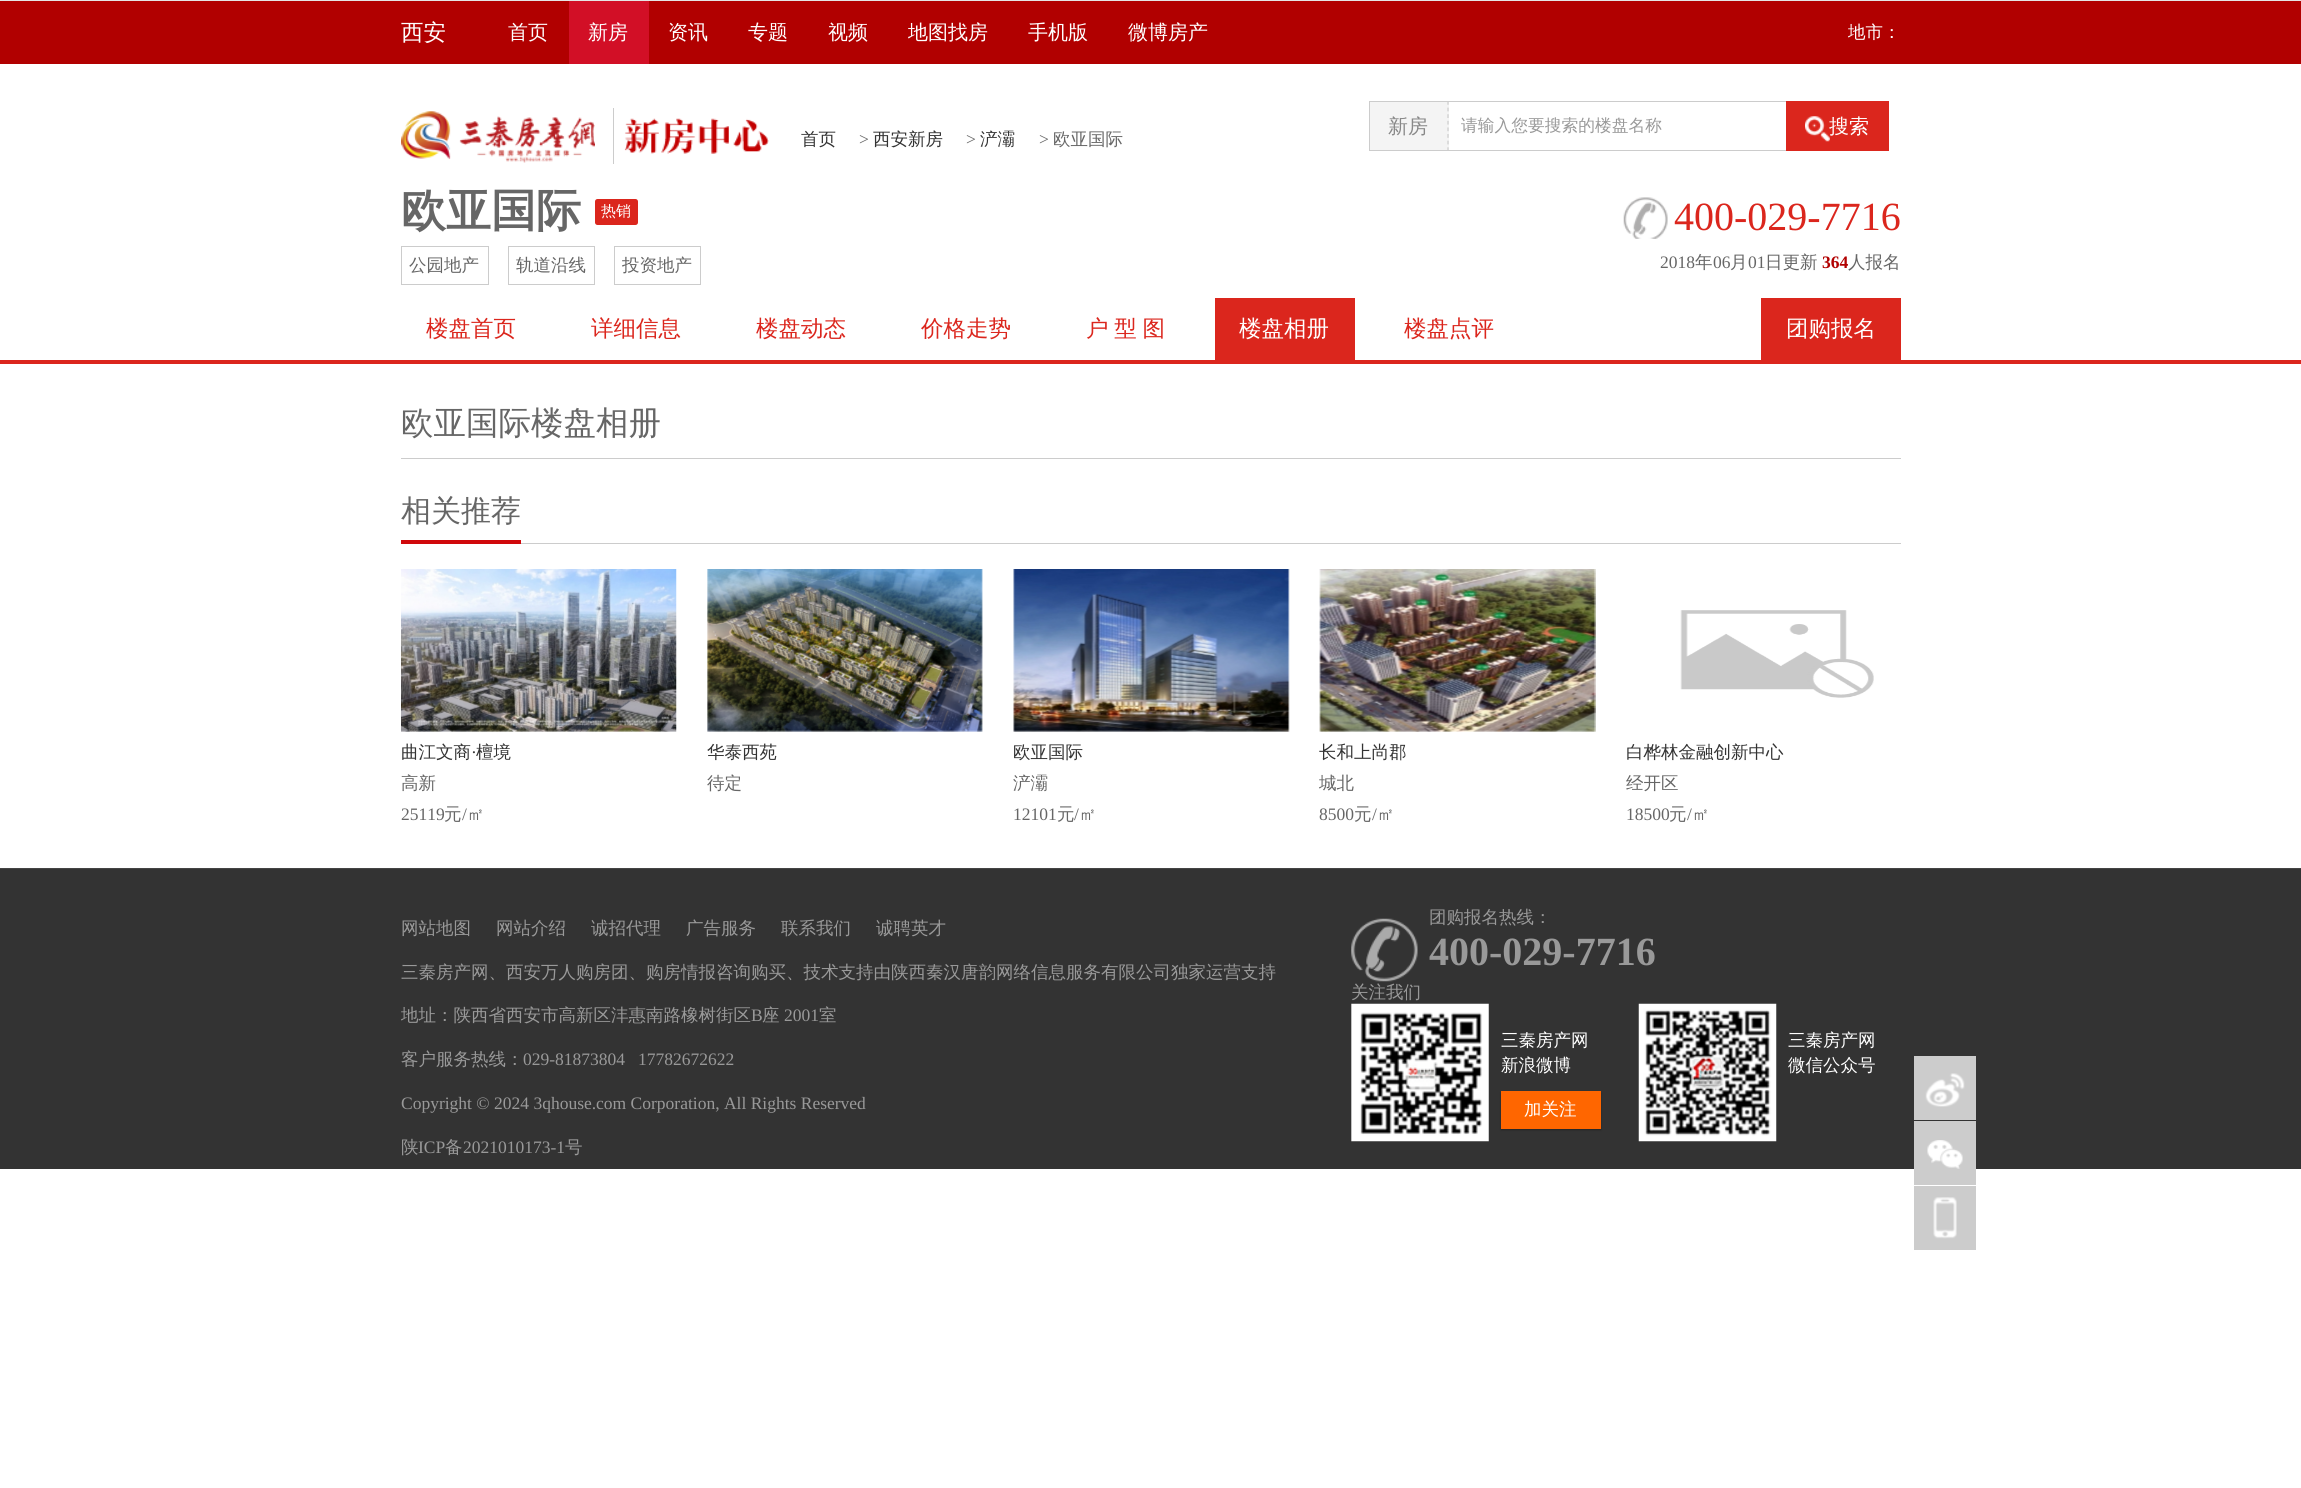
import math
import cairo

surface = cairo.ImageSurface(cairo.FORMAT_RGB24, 2301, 1488)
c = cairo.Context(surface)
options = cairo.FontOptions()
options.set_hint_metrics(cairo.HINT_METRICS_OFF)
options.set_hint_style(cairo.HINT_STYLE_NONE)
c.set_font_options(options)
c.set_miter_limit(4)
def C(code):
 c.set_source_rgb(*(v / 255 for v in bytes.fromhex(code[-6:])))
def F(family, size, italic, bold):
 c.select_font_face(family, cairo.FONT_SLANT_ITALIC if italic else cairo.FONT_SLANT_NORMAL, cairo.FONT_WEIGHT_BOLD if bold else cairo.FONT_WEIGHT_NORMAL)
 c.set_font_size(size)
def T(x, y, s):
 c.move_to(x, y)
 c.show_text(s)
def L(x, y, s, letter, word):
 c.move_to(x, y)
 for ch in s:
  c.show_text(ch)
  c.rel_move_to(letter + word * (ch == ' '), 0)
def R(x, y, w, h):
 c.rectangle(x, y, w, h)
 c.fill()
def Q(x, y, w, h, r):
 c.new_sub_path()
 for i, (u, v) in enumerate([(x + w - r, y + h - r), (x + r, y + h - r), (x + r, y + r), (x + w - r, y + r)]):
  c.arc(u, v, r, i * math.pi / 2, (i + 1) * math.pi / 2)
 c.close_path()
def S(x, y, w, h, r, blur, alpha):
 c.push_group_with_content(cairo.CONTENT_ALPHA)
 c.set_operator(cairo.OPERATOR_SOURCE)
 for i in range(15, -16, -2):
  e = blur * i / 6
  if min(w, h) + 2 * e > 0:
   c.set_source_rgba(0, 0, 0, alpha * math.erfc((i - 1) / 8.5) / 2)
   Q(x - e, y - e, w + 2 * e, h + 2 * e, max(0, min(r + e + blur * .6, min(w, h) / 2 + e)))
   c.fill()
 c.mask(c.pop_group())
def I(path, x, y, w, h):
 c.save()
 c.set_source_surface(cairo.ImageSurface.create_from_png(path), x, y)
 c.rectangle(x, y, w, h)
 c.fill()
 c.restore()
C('ffffff')
c.paint()
C('e5e5e5')
R(0,0,2301,1)
C('b10000')
R(0,1,2301,63)
F('WenQuanYi Zen Hei Medium',22.5,0,0)
C('ffffff')
T(401,40,'西安')
F('WenQuanYi Zen Hei Medium',20,0,0)
T(508,39,'首页')
C('d20f26')
R(569,1,80,63)
C('ffffff')
T(588,39,'新房')
T(668,39,'资讯')
T(748,39,'专题')
T(828,39,'视频')
T(908,39,'地图找房')
T(1028,39,'手机版')
T(1128,39,'微博房产')
F('WenQuanYi Zen Hei Medium',17.5,0,0)
T(1848,38,'地市：')
I('1.png',401,111,194,52)
I('2.png',624,118,145,36)
C('cccccc')
R(613,108,1,56)
C('f4f4f4')
R(1370,102,79,48)
C('cccccc')
R(1369,101,417,1)
c.new_path()
c.move_to(1448,101)
c.line_to(1448,151)
c.set_line_width(1.2)
c.set_dash([3.75,2.86])
c.stroke()
R(1369,150,417,1)
R(1369,101,1,50)
F('WenQuanYi Zen Hei Medium',20,0,0)
C('888888')
T(1388,133,'新房')
F('WenQuanYi Zen Hei Medium',16.75,0,0)
C('999999')
T(1461,131,'请输入您要搜索的楼盘名称')
C('db261d')
R(1786,101,103,50)
I('3.png',1805,116,25,26)
F('WenQuanYi Zen Hei Medium',20,0,0)
C('ffffff')
T(1829,133,'搜索')
F('WenQuanYi Zen Hei Medium',17.5,0,0)
C('333333')
T(801,145,'首页')
F('Liberation Serif',17.5,0,0)
C('666666')
T(859,145,'>')
F('WenQuanYi Zen Hei Medium',17.5,0,0)
C('333333')
T(873,145,'西安新房')
F('Liberation Serif',17.5,0,0)
C('666666')
T(966,145,'>')
F('WenQuanYi Zen Hei Medium',17.5,0,0)
C('333333')
T(980,145,'浐灞')
F('Liberation Serif',17.5,0,0)
C('666666')
T(1039,145,'>')
F('WenQuanYi Zen Hei Medium',17.5,0,0)
T(1053,145,'欧亚国际')
F('WenQuanYi Zen Hei',45,0,1)
T(401,226,'欧亚国际')
C('db261d')
Q(595,199,43,26,2.5)
c.fill()
F('WenQuanYi Zen Hei Medium',15,0,0)
C('ffffff')
T(601,216,'热销')
c.rectangle(401.5,246.5,87,38)
C('cccccc')
c.set_line_width(1)
c.set_dash([])
c.stroke()
F('WenQuanYi Zen Hei Medium',17.5,0,0)
C('666666')
T(409,271,'公园地产')
c.rectangle(508.5,246.5,86,38)
C('cccccc')
c.stroke()
C('666666')
T(516,271,'轨道沿线')
c.rectangle(614.5,246.5,86,38)
C('cccccc')
c.stroke()
C('666666')
T(622,271,'投资地产')
I('4.png',1623,197,45,42)
F('Liberation Serif',40,0,0)
C('db261d')
T(1674,230,'400-029-7716')
F('Liberation Serif',17.5,0,0)
C('666666')
T(1660,268,'2018')
F('WenQuanYi Zen Hei Medium',17.5,0,0)
T(1695,268,'年')
F('Liberation Serif',17.5,0,0)
T(1713,268,'06')
F('WenQuanYi Zen Hei Medium',17.5,0,0)
T(1730,268,'月')
F('Liberation Serif',17.5,0,0)
T(1748,268,'01')
F('WenQuanYi Zen Hei Medium',17.5,0,0)
T(1765,268,'日更新')
F('Liberation Serif',17.5,0,1)
C('b10000')
T(1822,268,'364')
F('WenQuanYi Zen Hei Medium',17.5,0,0)
C('666666')
T(1848,268,'人报名')
C('db261d')
R(0,360,2301,4)
F('WenQuanYi Zen Hei Medium',22.5,0,0)
T(426,336,'楼盘首页')
T(591,336,'详细信息')
T(756,336,'楼盘动态')
T(921,336,'价格走势')
L(1086,336,'户 型 图',0,-1)
R(1215,298,140,62)
C('ffffff')
T(1239,336,'楼盘相册')
C('db261d')
T(1404,336,'楼盘点评')
R(1761,298,140,62)
C('ffffff')
T(1786,336,'团购报名')
C('cccccc')
R(401,458,1500,1)
F('WenQuanYi Zen Hei Medium',32.5,0,0)
C('666666')
T(401,434,'欧亚国际楼盘相册')
C('cccccc')
R(521,543,1380,1)
C('d0080b')
R(401,540,120,4)
F('WenQuanYi Zen Hei Medium',30,0,0)
C('666666')
T(401,521,'相关推荐')
I('5.png',401,569,276,163)
F('WenQuanYi Zen Hei Medium',17.5,0,0)
C('333333')
T(401,758,'曲江文商')
F('Liberation Serif',17.5,0,0)
T(471,758,'·')
F('WenQuanYi Zen Hei Medium',17.5,0,0)
T(476,758,'檀境')
C('666666')
T(401,789,'高新')
F('Liberation Serif',17.5,0,0)
T(401,820,'25119')
F('WenQuanYi Zen Hei Medium',17.5,0,0)
T(444,820,'元')
F('Liberation Serif',17.5,0,0)
T(462,820,'/')
F('WenQuanYi Zen Hei Medium',17.5,0,0)
T(467,820,'㎡')
I('6.png',707,569,276,163)
C('333333')
T(707,758,'华泰西苑')
C('666666')
T(707,789,'待定')
I('7.png',1013,569,277,163)
C('333333')
T(1013,758,'欧亚国际')
C('666666')
T(1013,789,'浐灞')
F('Liberation Serif',17.5,0,0)
T(1013,820,'12101')
F('WenQuanYi Zen Hei Medium',17.5,0,0)
T(1057,820,'元')
F('Liberation Serif',17.5,0,0)
T(1074,820,'/')
F('WenQuanYi Zen Hei Medium',17.5,0,0)
T(1079,820,'㎡')
I('8.png',1319,569,277,163)
C('333333')
T(1319,758,'长和上尚郡')
C('666666')
T(1319,789,'城北')
F('Liberation Serif',17.5,0,0)
T(1319,820,'8500')
F('WenQuanYi Zen Hei Medium',17.5,0,0)
T(1354,820,'元')
F('Liberation Serif',17.5,0,0)
T(1372,820,'/')
F('WenQuanYi Zen Hei Medium',17.5,0,0)
T(1377,820,'㎡')
I('9.png',1680,610,194,88)
C('333333')
T(1626,758,'白桦林金融创新中心')
C('666666')
T(1626,789,'经开区')
F('Liberation Serif',17.5,0,0)
T(1626,820,'18500')
F('WenQuanYi Zen Hei Medium',17.5,0,0)
T(1669,820,'元')
F('Liberation Serif',17.5,0,0)
T(1687,820,'/')
F('WenQuanYi Zen Hei Medium',17.5,0,0)
T(1692,820,'㎡')
C('333333')
R(0,869,2301,300)
C('444444')
R(0,868,2301,1)
C('999999')
T(401,934,'网站地图')
T(496,934,'网站介绍')
T(591,934,'诚招代理')
T(686,934,'广告服务')
T(781,934,'联系我们')
T(876,934,'诚聘英才')
T(401,978,'三秦房产网、西安万人购房团、购房情报咨询购买、技术支持由陕西秦汉唐韵网络信息服务有限公司独家运营支持')
T(401,1021,'地址：陕西省西安市高新区沣惠南路橡树街区')
F('Liberation Serif',17.5,0,0)
T(751,1021,'B')
F('WenQuanYi Zen Hei Medium',17.5,0,0)
T(762,1021,'座')
F('Liberation Serif',17.5,0,0)
T(784,1021,'2001')
F('WenQuanYi Zen Hei Medium',17.5,0,0)
T(819,1021,'室')
T(401,1065,'客户服务热线：')
F('Liberation Serif',17.5,0,0)
T(523,1065,'029-81873804')
T(638,1065,'17782672622')
T(401,1109,'Copyright © 2024 3qhouse.com Corporation, All Rights Reserved')
F('WenQuanYi Zen Hei Medium',17.5,0,0)
T(401,1153,'陕')
F('Liberation Serif',17.5,0,0)
T(418,1153,'ICP')
F('WenQuanYi Zen Hei Medium',17.5,0,0)
T(445,1153,'备')
F('Liberation Serif',17.5,0,0)
T(463,1153,'2021010173-1')
F('WenQuanYi Zen Hei Medium',17.5,0,0)
T(565,1153,'号')
I('10.png',1351,918,67,64)
T(1429,923,'团购报名热线：')
F('Liberation Serif',40,0,1)
T(1429,965,'400-029-7716')
F('WenQuanYi Zen Hei Medium',17.5,0,0)
T(1351,998,'关注我们')
I('11.png',1351,1003,138,139)
C('ffffff')
T(1501,1046,'三秦房产网')
T(1501,1071,'新浪微博')
C('000000')
S(1501,1093,100,37,0,1,.3)
C('ff6600')
R(1501,1091,100,38)
C('ffffff')
T(1524,1115,'加关注')
I('12.png',1638,1003,139,139)
T(1788,1046,'三秦房产网')
T(1788,1071,'微信公众号')
C('cccccc')
R(1914,1056,62,64)
I('13.png',1925,1073,40,34)
R(1914,1121,62,64)
I('14.png',1927,1140,36,29)
R(1914,1186,62,64)
I('15.png',1933,1197,24,42)
surface.write_to_png('o.png')
